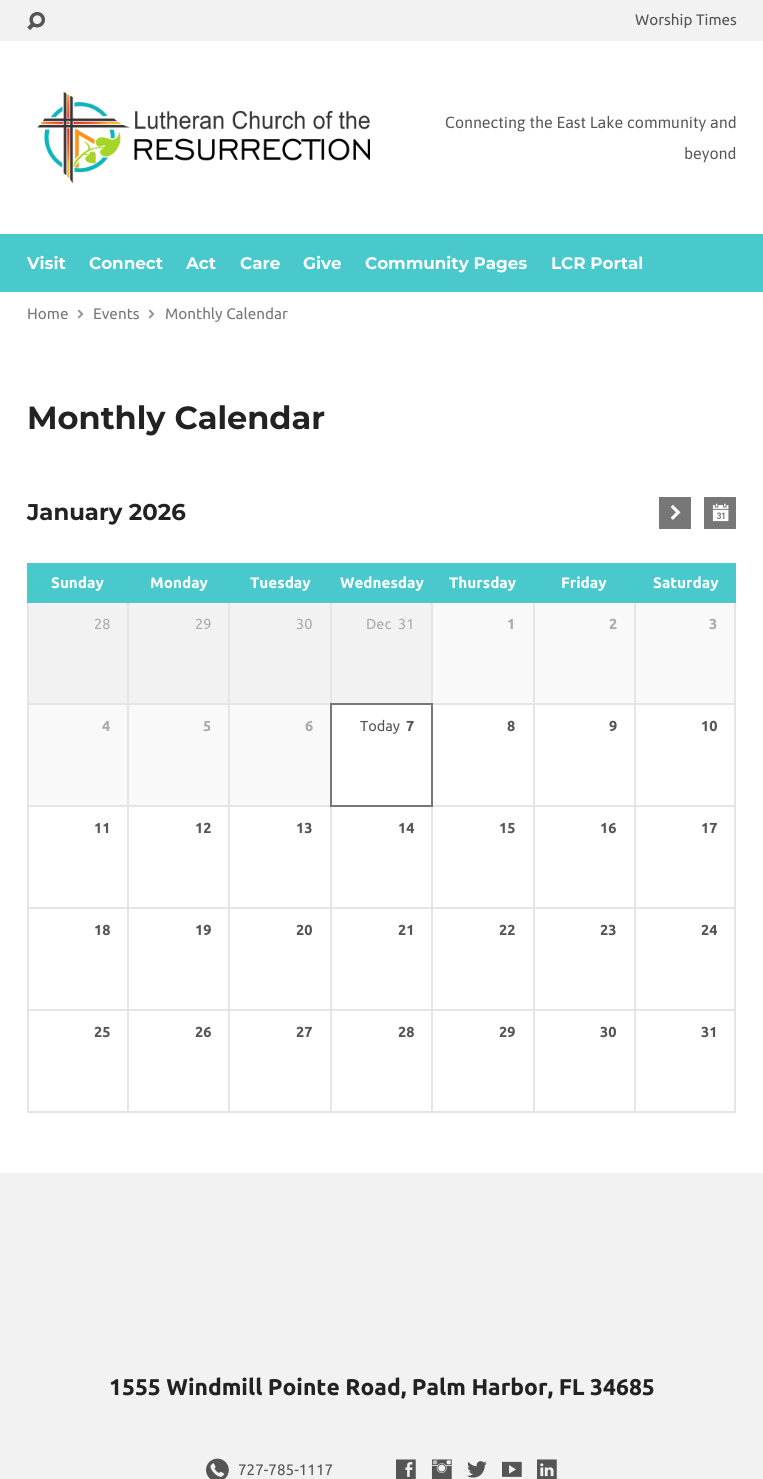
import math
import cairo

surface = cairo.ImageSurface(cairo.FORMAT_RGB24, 763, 1479)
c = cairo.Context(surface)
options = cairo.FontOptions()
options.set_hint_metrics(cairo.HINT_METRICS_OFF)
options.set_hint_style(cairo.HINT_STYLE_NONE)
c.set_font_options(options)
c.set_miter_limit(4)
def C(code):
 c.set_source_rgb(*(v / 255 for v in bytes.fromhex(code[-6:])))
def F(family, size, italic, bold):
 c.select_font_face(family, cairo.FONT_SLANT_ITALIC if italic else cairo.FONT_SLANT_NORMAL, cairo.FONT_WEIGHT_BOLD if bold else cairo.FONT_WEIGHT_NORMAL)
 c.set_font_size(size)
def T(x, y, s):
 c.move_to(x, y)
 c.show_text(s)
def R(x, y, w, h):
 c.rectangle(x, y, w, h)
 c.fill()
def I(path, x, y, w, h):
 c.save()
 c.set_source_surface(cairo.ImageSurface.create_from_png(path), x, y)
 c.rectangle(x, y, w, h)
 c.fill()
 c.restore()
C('ffffff')
c.paint()
C('f2f2f2')
R(0,0,763,41)
I('1.png',27,11,18,19)
F('Ubuntu',15.25,0,0)
C('555555')
T(635,25,'Worship Times')
I('2.png',37,91,333,93)
F('Asap',16,0,0)
T(445,128,'Connecting the East Lake community and')
T(684,159,'beyond')
C('49c9cc')
R(0,234,763,58)
F('Montserrat',16.75,0,1)
C('ffffff')
T(27,269,'Visit')
T(89,269,'Connect')
T(186,269,'Act')
T(240,269,'Care')
T(303,269,'Give')
T(365,269,'Community Pages')
T(551,269,'LCR Portal')
F('Ubuntu',15.25,0,0)
C('777777')
T(27,319,'Home')
I('3.png',77,309,7,10)
T(93,319,'Events')
I('3.png',148,309,7,10)
T(165,319,'Monthly Calendar')
F('Montserrat',32,0,1)
C('222222')
T(27,429,'Monthly Calendar')
F('Montserrat',22.8,0,1)
T(27,520,'January 2026')
C('777777')
R(659,497,32,32)
I('4.png',670,504,11,16)
R(704,497,32,32)
I('5.png',712,503,17,19)
C('49c9cc')
R(27,563,709,40)
F('Ubuntu',15.25,0,1)
C('ffffff')
T(51,588,'Sunday')
T(150,588,'Monday')
T(250,588,'Tuesday')
T(340,588,'Wednesday')
T(449,588,'Thursday')
T(561,588,'Friday')
T(653,588,'Saturday')
C('f2f2f2')
R(29,603,98,100)
C('e5e5e5')
R(127,603,1,101)
R(27,703,101,2)
R(27,603,2,101)
F('Ubuntu',14.5,0,0)
C('aaaaaa')
T(94,629,'28')
C('f2f2f2')
R(129,603,99,100)
C('e5e5e5')
R(228,603,1,101)
R(128,703,101,1)
R(128,603,1,101)
C('aaaaaa')
T(195,629,'29')
C('f2f2f2')
R(230,603,100,100)
C('e5e5e5')
R(330,603,2,101)
R(229,703,102,1)
R(229,603,1,101)
C('aaaaaa')
T(296,629,'30')
C('f2f2f2')
R(332,603,99,100)
C('e5e5e5')
R(431,603,1,101)
C('aaaaaa')
T(366,629,'Dec')
T(398,629,'31')
C('f9f9f9')
R(433,603,100,100)
C('e5e5e5')
R(533,603,1,101)
R(432,703,102,1)
R(432,603,1,101)
F('Ubuntu',14.5,0,1)
C('aaaaaa')
T(507,629,'1')
C('f9f9f9')
R(535,603,99,100)
C('e5e5e5')
R(634,603,1,101)
R(534,703,101,1)
R(534,603,1,101)
C('aaaaaa')
T(609,629,'2')
C('f9f9f9')
R(636,603,98,100)
C('e5e5e5')
R(734,603,2,101)
R(635,703,101,2)
R(635,603,1,101)
C('aaaaaa')
T(709,629,'3')
C('f9f9f9')
R(29,705,98,100)
C('e5e5e5')
R(127,704,1,102)
R(27,805,101,2)
R(27,704,2,102)
C('aaaaaa')
T(102,731,'4')
C('f9f9f9')
c.rectangle(128.5,704.5,100,101)
c.fill_preserve()
C('e5e5e5')
c.set_line_width(1)
c.stroke()
C('aaaaaa')
T(203,731,'5')
C('f9f9f9')
c.rectangle(229.5,704.5,101,101)
c.fill_preserve()
C('e5e5e5')
c.stroke()
C('aaaaaa')
T(305,731,'6')
c.rectangle(331.5,704.5,100,101)
C('777777')
c.stroke()
c.rectangle(432.5,704.5,101,101)
C('e5e5e5')
c.stroke()
c.rectangle(229.5,806.5,101,101)
c.stroke()
c.rectangle(331.5,806.5,100,101)
c.stroke()
c.rectangle(432.5,806.5,101,101)
c.stroke()
c.rectangle(330.5,703.5,102,103)
C('777777')
c.stroke()
F('Ubuntu',14.5,0,0)
C('555555')
T(360,731,'Today')
F('Ubuntu',14.5,0,1)
T(406,731,'7')
T(507,731,'8')
c.rectangle(534.5,704.5,100,101)
C('e5e5e5')
c.stroke()
C('555555')
T(609,731,'9')
C('e5e5e5')
R(734,704,2,102)
R(635,805,101,2)
R(635,704,1,102)
C('555555')
T(701,731,'10')
C('e5e5e5')
R(127,806,1,102)
R(27,907,101,2)
R(27,806,2,102)
C('555555')
T(94,833,'11')
c.rectangle(128.5,806.5,100,101)
C('e5e5e5')
c.stroke()
C('555555')
T(195,833,'12')
T(296,833,'13')
T(398,833,'14')
T(499,833,'15')
c.rectangle(534.5,806.5,100,101)
C('e5e5e5')
c.stroke()
C('555555')
T(600,833,'16')
C('e5e5e5')
R(734,806,2,102)
R(635,907,101,2)
R(635,806,1,102)
C('555555')
T(701,833,'17')
C('e5e5e5')
R(127,908,1,102)
R(27,1009,101,2)
R(27,908,2,102)
C('555555')
T(94,935,'18')
c.rectangle(128.5,908.5,100,101)
C('e5e5e5')
c.stroke()
C('555555')
T(195,935,'19')
c.rectangle(229.5,908.5,101,101)
C('e5e5e5')
c.stroke()
C('555555')
T(296,935,'20')
c.rectangle(331.5,908.5,100,101)
C('e5e5e5')
c.stroke()
C('555555')
T(398,935,'21')
c.rectangle(432.5,908.5,101,101)
C('e5e5e5')
c.stroke()
C('555555')
T(499,935,'22')
c.rectangle(534.5,908.5,100,101)
C('e5e5e5')
c.stroke()
C('555555')
T(600,935,'23')
C('e5e5e5')
R(734,908,2,102)
R(635,1009,101,2)
R(635,908,1,102)
C('555555')
T(701,935,'24')
C('e5e5e5')
R(127,1010,1,102)
R(27,1111,101,1)
R(27,1010,2,102)
C('555555')
T(94,1037,'25')
c.rectangle(128.5,1010.5,100,101)
C('e5e5e5')
c.stroke()
C('555555')
T(195,1037,'26')
c.rectangle(229.5,1010.5,101,101)
C('e5e5e5')
c.stroke()
C('555555')
T(296,1037,'27')
c.rectangle(331.5,1010.5,100,101)
C('e5e5e5')
c.stroke()
C('555555')
T(398,1037,'28')
c.rectangle(432.5,1010.5,101,101)
C('e5e5e5')
c.stroke()
C('555555')
T(499,1037,'29')
c.rectangle(534.5,1010.5,100,101)
C('e5e5e5')
c.stroke()
C('555555')
T(600,1037,'30')
C('e5e5e5')
R(734,1010,2,102)
R(635,1111,101,1)
R(635,1010,1,102)
C('555555')
T(701,1037,'31')
C('e5e5e5')
R(27,1112,709,1)
C('f2f2f2')
R(0,1173,763,306)
F('Ubuntu',22.8,0,1)
C('222222')
T(109,1395,'1555 Windmill Pointe Road, Palm Harbor, FL 34685')
I('6.png',206,1458,23,21)
F('Ubuntu',15.25,0,0)
C('555555')
T(238,1475,'727-785-1117')
I('7.png',396,1459,20,20)
I('8.png',431,1459,21,20)
I('9.png',467,1461,20,17)
I('10.png',502,1461,20,16)
I('11.png',537,1459,20,20)
surface.write_to_png('o.png')
